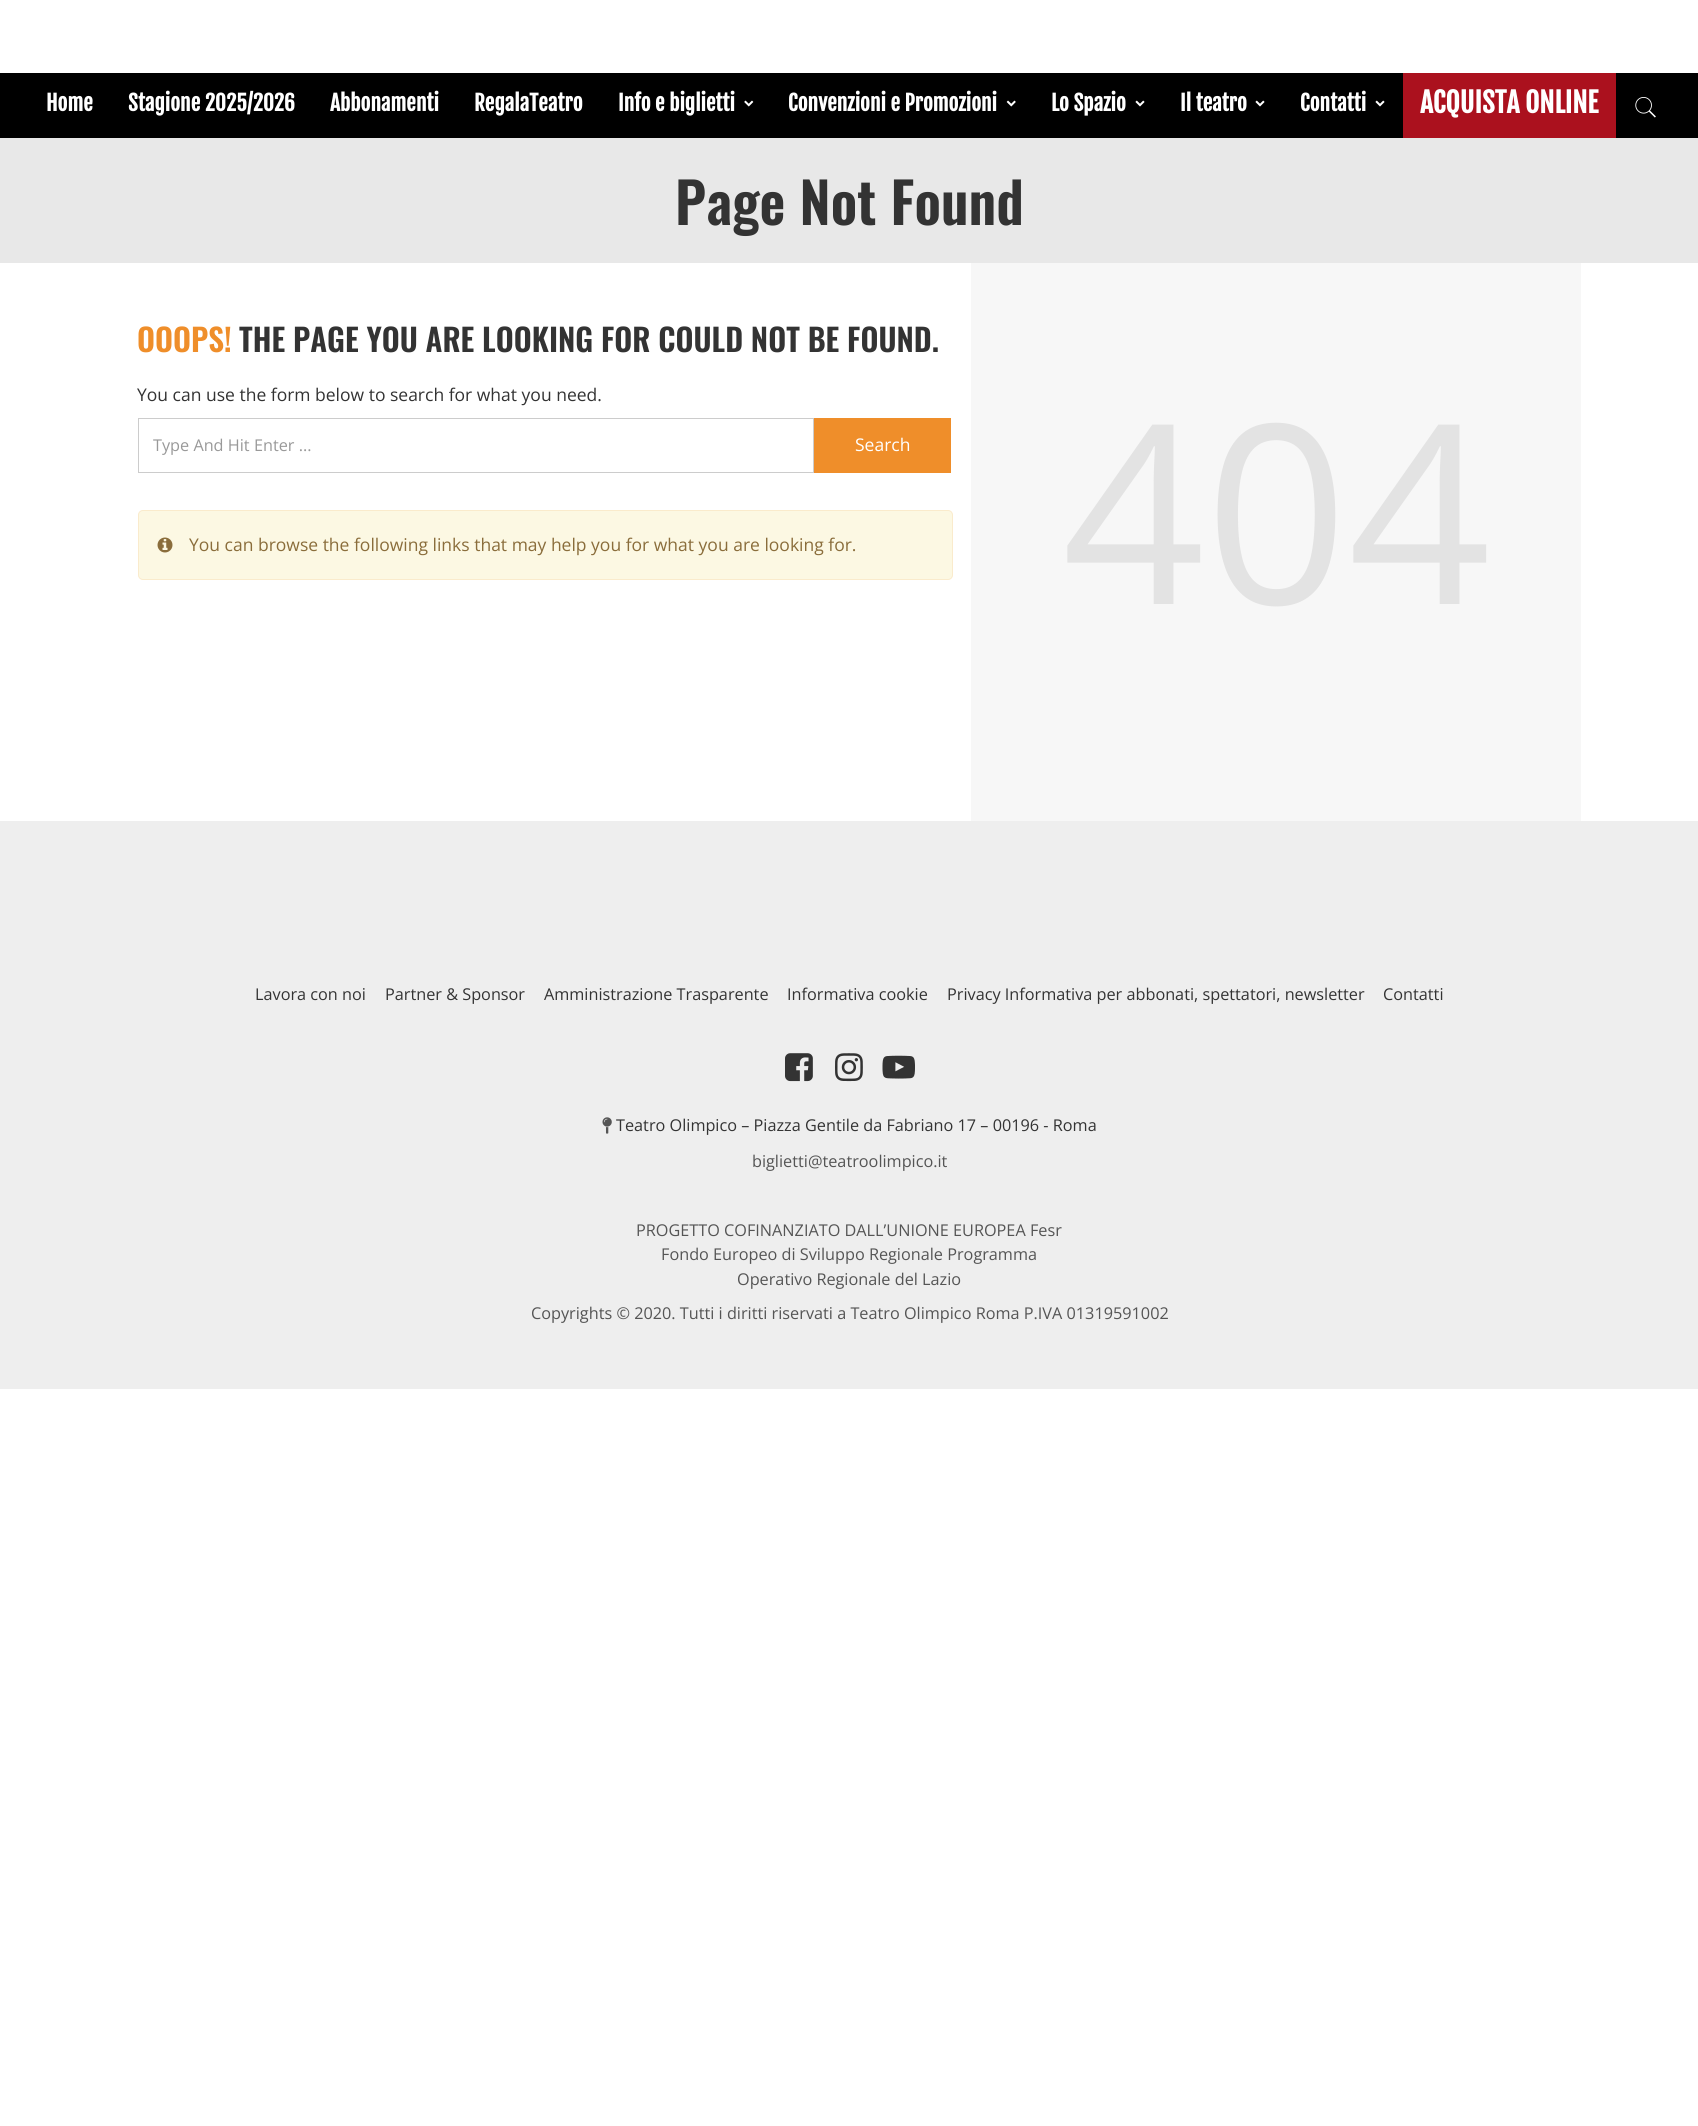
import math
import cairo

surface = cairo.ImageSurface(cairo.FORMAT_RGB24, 1698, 2126)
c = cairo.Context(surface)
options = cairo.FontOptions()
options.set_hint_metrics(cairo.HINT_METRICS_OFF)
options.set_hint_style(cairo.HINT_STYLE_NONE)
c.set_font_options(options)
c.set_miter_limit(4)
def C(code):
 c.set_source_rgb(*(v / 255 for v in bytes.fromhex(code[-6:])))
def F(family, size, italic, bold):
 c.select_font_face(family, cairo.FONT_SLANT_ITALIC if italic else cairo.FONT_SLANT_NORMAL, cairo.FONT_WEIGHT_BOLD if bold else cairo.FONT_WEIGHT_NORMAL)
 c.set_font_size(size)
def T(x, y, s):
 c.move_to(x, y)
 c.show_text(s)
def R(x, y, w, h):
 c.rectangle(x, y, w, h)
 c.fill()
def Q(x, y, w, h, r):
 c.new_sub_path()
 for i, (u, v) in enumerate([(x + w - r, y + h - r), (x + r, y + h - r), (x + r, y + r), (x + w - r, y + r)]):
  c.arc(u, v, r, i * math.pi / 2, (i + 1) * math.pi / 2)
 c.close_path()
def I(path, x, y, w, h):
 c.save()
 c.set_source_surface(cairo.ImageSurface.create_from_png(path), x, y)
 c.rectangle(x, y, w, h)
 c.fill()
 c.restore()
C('ffffff')
c.paint()
C('000000')
R(0,73,1698,65)
F('Fjalla One',21.25,0,1)
C('ffffff')
T(46,111,'Home')
T(128,111,'Stagione 2025/2026')
T(330,111,'Abbonamenti')
T(474,111,'RegalaTeatro')
T(618,111,'Info e biglietti')
I('1.png',744,100,10,7)
T(788,111,'Convenzioni e Promozioni')
I('2.png',1006,100,10,7)
T(1051,111,'Lo Spazio')
I('3.png',1135,100,10,7)
T(1180,111,'Il teatro')
I('3.png',1255,100,10,7)
T(1300,111,'Contatti')
I('3.png',1375,100,10,7)
C('ab111e')
R(1403,73,213,65)
F('Fjalla One',27.5,0,1)
C('ffffff')
T(1420,113,'ACQUISTA ONLINE')
I('4.png',1635,97,21,21)
C('e8e8e8')
R(0,138,1698,125)
F('Oswald SemiBold',56.25,0,0)
C('333333')
T(675,225,'Page Not Found')
F('Oswald SemiBold',31.25,0,0)
C('ef8e2a')
T(137,352,'OOOPS!')
C('333333')
T(239,352,'THE PAGE YOU ARE LOOKING FOR COULD NOT BE FOUND.')
F('Open Sans',17.5,0,0)
T(137,401,'You can use the form below to search for what you need.')
c.rectangle(138.5,418.5,675,54)
C('cccccc')
c.set_line_width(1)
c.stroke()
F('Open Sans',16.25,0,0)
C('999999')
T(153,451,'Type And Hit Enter ...')
C('ef8e2a')
R(814,418,137,55)
F('Open Sans',17.5,0,0)
C('ffffff')
T(855,451,'Search')
C('fcf8e3')
Q(138.5,510.5,814,69,4.5)
c.fill_preserve()
C('faebcc')
c.stroke()
I('5.png',157,537,16,16)
C('8a6d3b')
T(189,551,'You can browse the following links that may help you for what you are looking for.')
C('f7f7f7')
R(971,263,610,558)
F('Open Sans',250,0,0)
C('e3e3e3')
T(1062,604,'404')
C('eeeeee')
R(0,821,1698,568)
F('Open Sans',16.25,0,0)
C('333333')
T(255,1000,'Lavora con noi')
T(385,1000,'Partner & Sponsor')
T(544,1000,'Amministrazione Trasparente')
T(787,1000,'Informativa cookie')
T(947,1000,'Privacy Informativa per abbonati, spettatori, newsletter')
T(1383,1000,'Contatti')
I('6.png',785,1053,28,29)
I('7.png',835,1053,28,29)
I('8.png',882,1055,33,24)
I('9.png',602,1117,10,17)
T(616,1131,'Teatro Olimpico – Piazza Gentile da Fabriano 17 – 00196 - Roma')
C('555555')
T(752,1167,'biglietti@teatroolimpico.it')
T(636,1236,'PROGETTO COFINANZIATO DALL’UNIONE EUROPEA Fesr')
T(661,1260,'Fondo Europeo di Sviluppo Regionale Programma')
T(737,1285,'Operativo Regionale del Lazio')
T(531,1319,'Copyrights © 2020. Tutti i diritti riservati a Teatro Olimpico Roma P.IVA 01319591002')
surface.write_to_png('o.png')
